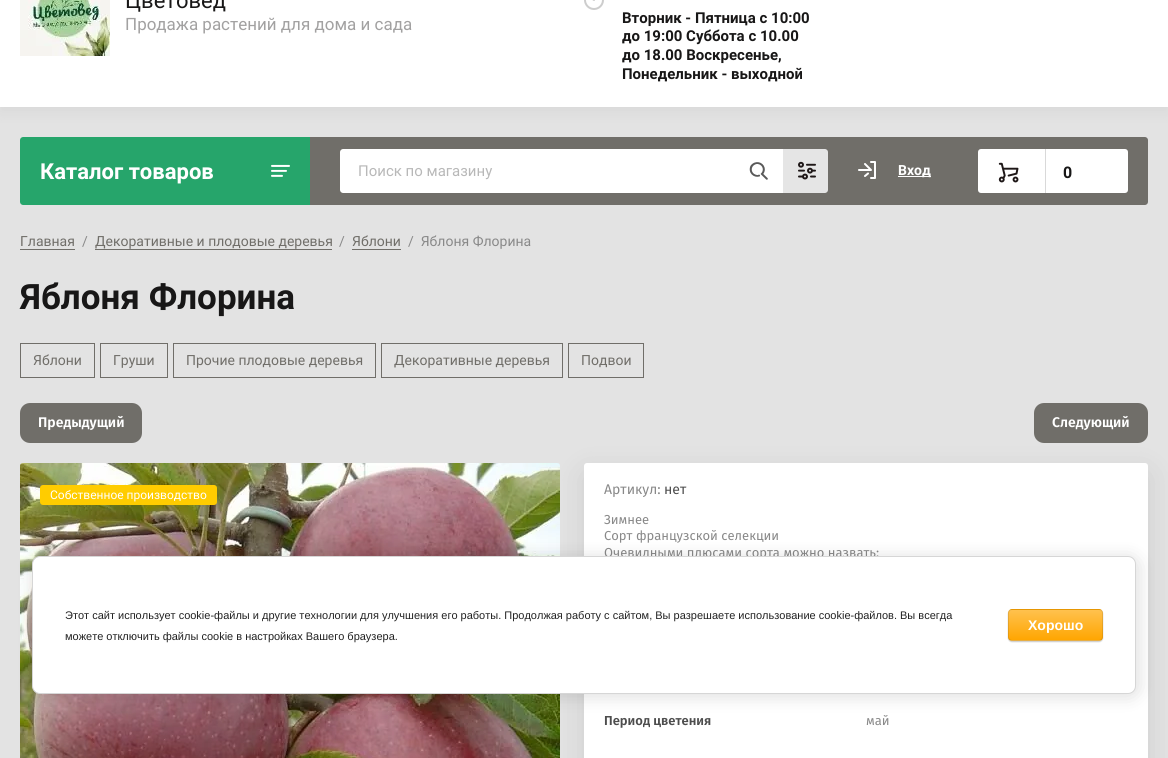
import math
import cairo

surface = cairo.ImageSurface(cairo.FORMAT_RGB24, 1168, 758)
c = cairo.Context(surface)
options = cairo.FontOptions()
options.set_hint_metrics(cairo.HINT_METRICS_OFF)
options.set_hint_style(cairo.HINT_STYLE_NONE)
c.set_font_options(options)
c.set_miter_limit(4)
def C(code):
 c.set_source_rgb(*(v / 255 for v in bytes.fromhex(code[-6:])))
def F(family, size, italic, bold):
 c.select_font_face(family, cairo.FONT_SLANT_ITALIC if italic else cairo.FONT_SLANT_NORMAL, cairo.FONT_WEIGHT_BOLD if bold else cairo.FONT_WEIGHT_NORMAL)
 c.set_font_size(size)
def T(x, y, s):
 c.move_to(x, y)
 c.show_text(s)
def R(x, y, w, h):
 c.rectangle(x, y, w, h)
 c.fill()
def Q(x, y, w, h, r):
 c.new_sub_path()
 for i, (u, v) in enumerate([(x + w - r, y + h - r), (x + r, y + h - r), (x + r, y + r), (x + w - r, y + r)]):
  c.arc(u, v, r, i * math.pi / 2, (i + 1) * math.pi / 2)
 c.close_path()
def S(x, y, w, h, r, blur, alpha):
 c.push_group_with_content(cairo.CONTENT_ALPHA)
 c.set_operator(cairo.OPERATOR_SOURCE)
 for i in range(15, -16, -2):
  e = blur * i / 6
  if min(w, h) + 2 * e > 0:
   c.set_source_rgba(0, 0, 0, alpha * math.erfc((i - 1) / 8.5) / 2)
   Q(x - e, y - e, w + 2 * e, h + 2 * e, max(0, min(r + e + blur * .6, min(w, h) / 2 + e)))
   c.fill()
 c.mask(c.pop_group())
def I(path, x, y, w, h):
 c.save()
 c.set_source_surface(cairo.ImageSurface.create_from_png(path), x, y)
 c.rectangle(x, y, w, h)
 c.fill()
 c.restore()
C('e3e3e3')
c.paint()
C('000000')
S(0,-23,1168,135,0,7.5,.05)
C('ffffff')
R(0,0,1168,107)
I('1.png',20,0,90,56)
F('Roboto',22,0,0)
C('181717')
T(125,8,'Цветовед')
F('Roboto',17,0,0)
C('a2a1a1')
T(125,30,'Продажа растений для дома и сада')
I('2.png',584,0,20,10)
F('Roboto',15,0,1)
C('181717')
T(622,23,'Вторник - Пятница с 10:00')
T(622,41,'до 19:00 Суббота с 10.00')
T(622,60,'до 18.00 Воскресенье,')
T(622,79,'Понедельник - выходной')
C('26a56b')
c.new_path()
c.move_to(23,137)
c.line_to(310,137)
c.line_to(310,205)
c.line_to(23,205)
c.curve_to(21.5,205,20,203.5,20,202)
c.line_to(20,140)
c.curve_to(20,138.5,21.5,137,23,137)
c.close_path()
c.fill()
I('3.png',271,164,19,13)
F('Roboto',22,0,1)
C('ffffff')
T(40,179,'Каталог товаров')
C('706e69')
c.new_path()
c.move_to(310,137)
c.line_to(1145,137)
c.curve_to(1146.5,137,1148,138.5,1148,140)
c.line_to(1148,202)
c.curve_to(1148,203.5,1146.5,205,1145,205)
c.line_to(310,205)
c.close_path()
c.fill()
C('ffffff')
c.new_path()
c.move_to(343,149)
c.line_to(783,149)
c.line_to(783,193)
c.line_to(343,193)
c.curve_to(341.5,193,340,191.5,340,190)
c.line_to(340,152)
c.curve_to(340,150.5,341.5,149,343,149)
c.close_path()
c.fill()
F('Roboto',15,0,0)
C('b8b8b8')
T(358,176,'Поиск по магазину')
I('4.png',749,162,19,18)
C('e5e5e5')
c.new_path()
c.move_to(783,149)
c.line_to(825,149)
c.curve_to(826.5,149,828,150.5,828,152)
c.line_to(828,190)
c.curve_to(828,191.5,826.5,193,825,193)
c.line_to(783,193)
c.close_path()
c.fill()
I('5.png',798,161,18,19)
I('6.png',858,161,18,18)
C('ffffff')
R(898,176,33,1)
F('Roboto',14,0,1)
T(898,175,'Вход')
Q(978,149,150,44,3)
c.fill()
I('7.png',998,162,21,21)
C('d9d9d9')
R(1045,149,1,44)
F('Roboto',16,0,1)
C('181717')
T(1063,178,'0')
F('Roboto',14,0,0)
C('706e69')
T(20,246,'Главная')
R(20,249,55,1)
C('898989')
T(82,246,'/')
C('706e69')
T(95,246,'Декоративные и плодовые деревья')
R(95,249,237,1)
C('898989')
T(339,246,'/')
C('706e69')
T(352,246,'Яблони')
R(352,249,49,1)
C('898989')
T(408,246,'/  Яблоня Флорина')
F('Roboto',35,0,1)
C('181717')
T(20,309,'Яблоня Флорина')
c.rectangle(20.5,343.5,74,34)
C('706e69')
c.set_line_width(1)
c.stroke()
F('Roboto',14,0,0)
T(33,365,'Яблони')
c.rectangle(100.5,343.5,67,34)
c.stroke()
T(113,365,'Груши')
c.rectangle(173.5,343.5,202,34)
c.stroke()
T(186,365,'Прочие плодовые деревья')
c.rectangle(381.5,343.5,181,34)
c.stroke()
T(394,365,'Декоративные деревья')
c.rectangle(568.5,343.5,75,34)
c.stroke()
T(581,365,'Подвои')
Q(20,403,122,40,10)
c.fill()
F('Fira Sans SemiBold',14,0,0)
C('ffffff')
T(38,427,'Предыдущий')
C('706e69')
Q(1034,403,114,40,10)
c.fill()
C('ffffff')
T(1052,427,'Следующий')
C('000000')
S(584,473,564,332,3,14.5,.1)
I('8.png',20,463,540,295)
C('ffcc00')
Q(40,485,177,20,3)
c.fill()
F('Roboto',12,0,0)
C('ffffff')
T(50,499,'Собственное производство')
Q(584,463,564,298,3)
c.fill()
F('Fira Sans',14,0,0)
C('898989')
T(604,494,'Артикул:')
C('4d4d4d')
T(664,494,'нет')
F('Fira Sans',13,0,0)
C('898989')
T(604,524,'Зимнее')
T(604,540,'Сорт французской селекции')
T(604,557,'Очевидными плюсами сорта можно назвать:')
F('Fira Sans SemiBold',13,0,0)
C('4d4d4d')
T(604,725,'Период цветения')
F('Fira Sans',13,0,0)
C('898989')
T(866,725,'май')
C('000000')
S(34,558,1104,138,8,9,.14)
C('ffffff')
Q(32.5,556.5,1103,137,7.5)
c.fill_preserve()
C('d6d6d6')
c.stroke()
F('Liberation Sans',11,0,0)
C('212121')
T(65,619,'Этот сайт использует cookie-файлы и другие технологии для улучшения его работы. Продолжая работу с сайтом, Вы разрешаете использование cookie-файлов. Вы всегда')
T(65,640,'можете отключить файлы cookie в настройках Вашего браузера.')
C('000000')
S(1008,610,95,32,4,.5,.2)
c.save()
Q(1008,609,95,32,4)
c.clip()
gradient = cairo.LinearGradient(1056,580,1056,610)
gradient.add_color_stop_rgba(0,1,0.757,0.306,1)
gradient.add_color_stop_rgba(1,1,0.651,0.004,1)
c.set_source(gradient)
R(1008,609,95,1)
gradient = cairo.LinearGradient(1056,610,1056,640)
gradient.add_color_stop_rgba(0,1,0.757,0.306,1)
gradient.add_color_stop_rgba(1,1,0.651,0.004,1)
c.set_source(gradient)
R(1008,610,95,30)
gradient = cairo.LinearGradient(1056,640,1056,670)
gradient.add_color_stop_rgba(0,1,0.757,0.306,1)
gradient.add_color_stop_rgba(1,1,0.651,0.004,1)
c.set_source(gradient)
R(1008,640,95,1)
c.restore()
Q(1008.5,609.5,94,31,3.5)
c.set_source_rgba(0,0,0,0.1)
c.stroke()
F('Liberation Sans',14,0,1)
C('ffffff')
T(1028,630,'Хорошо')
surface.write_to_png('o.png')
